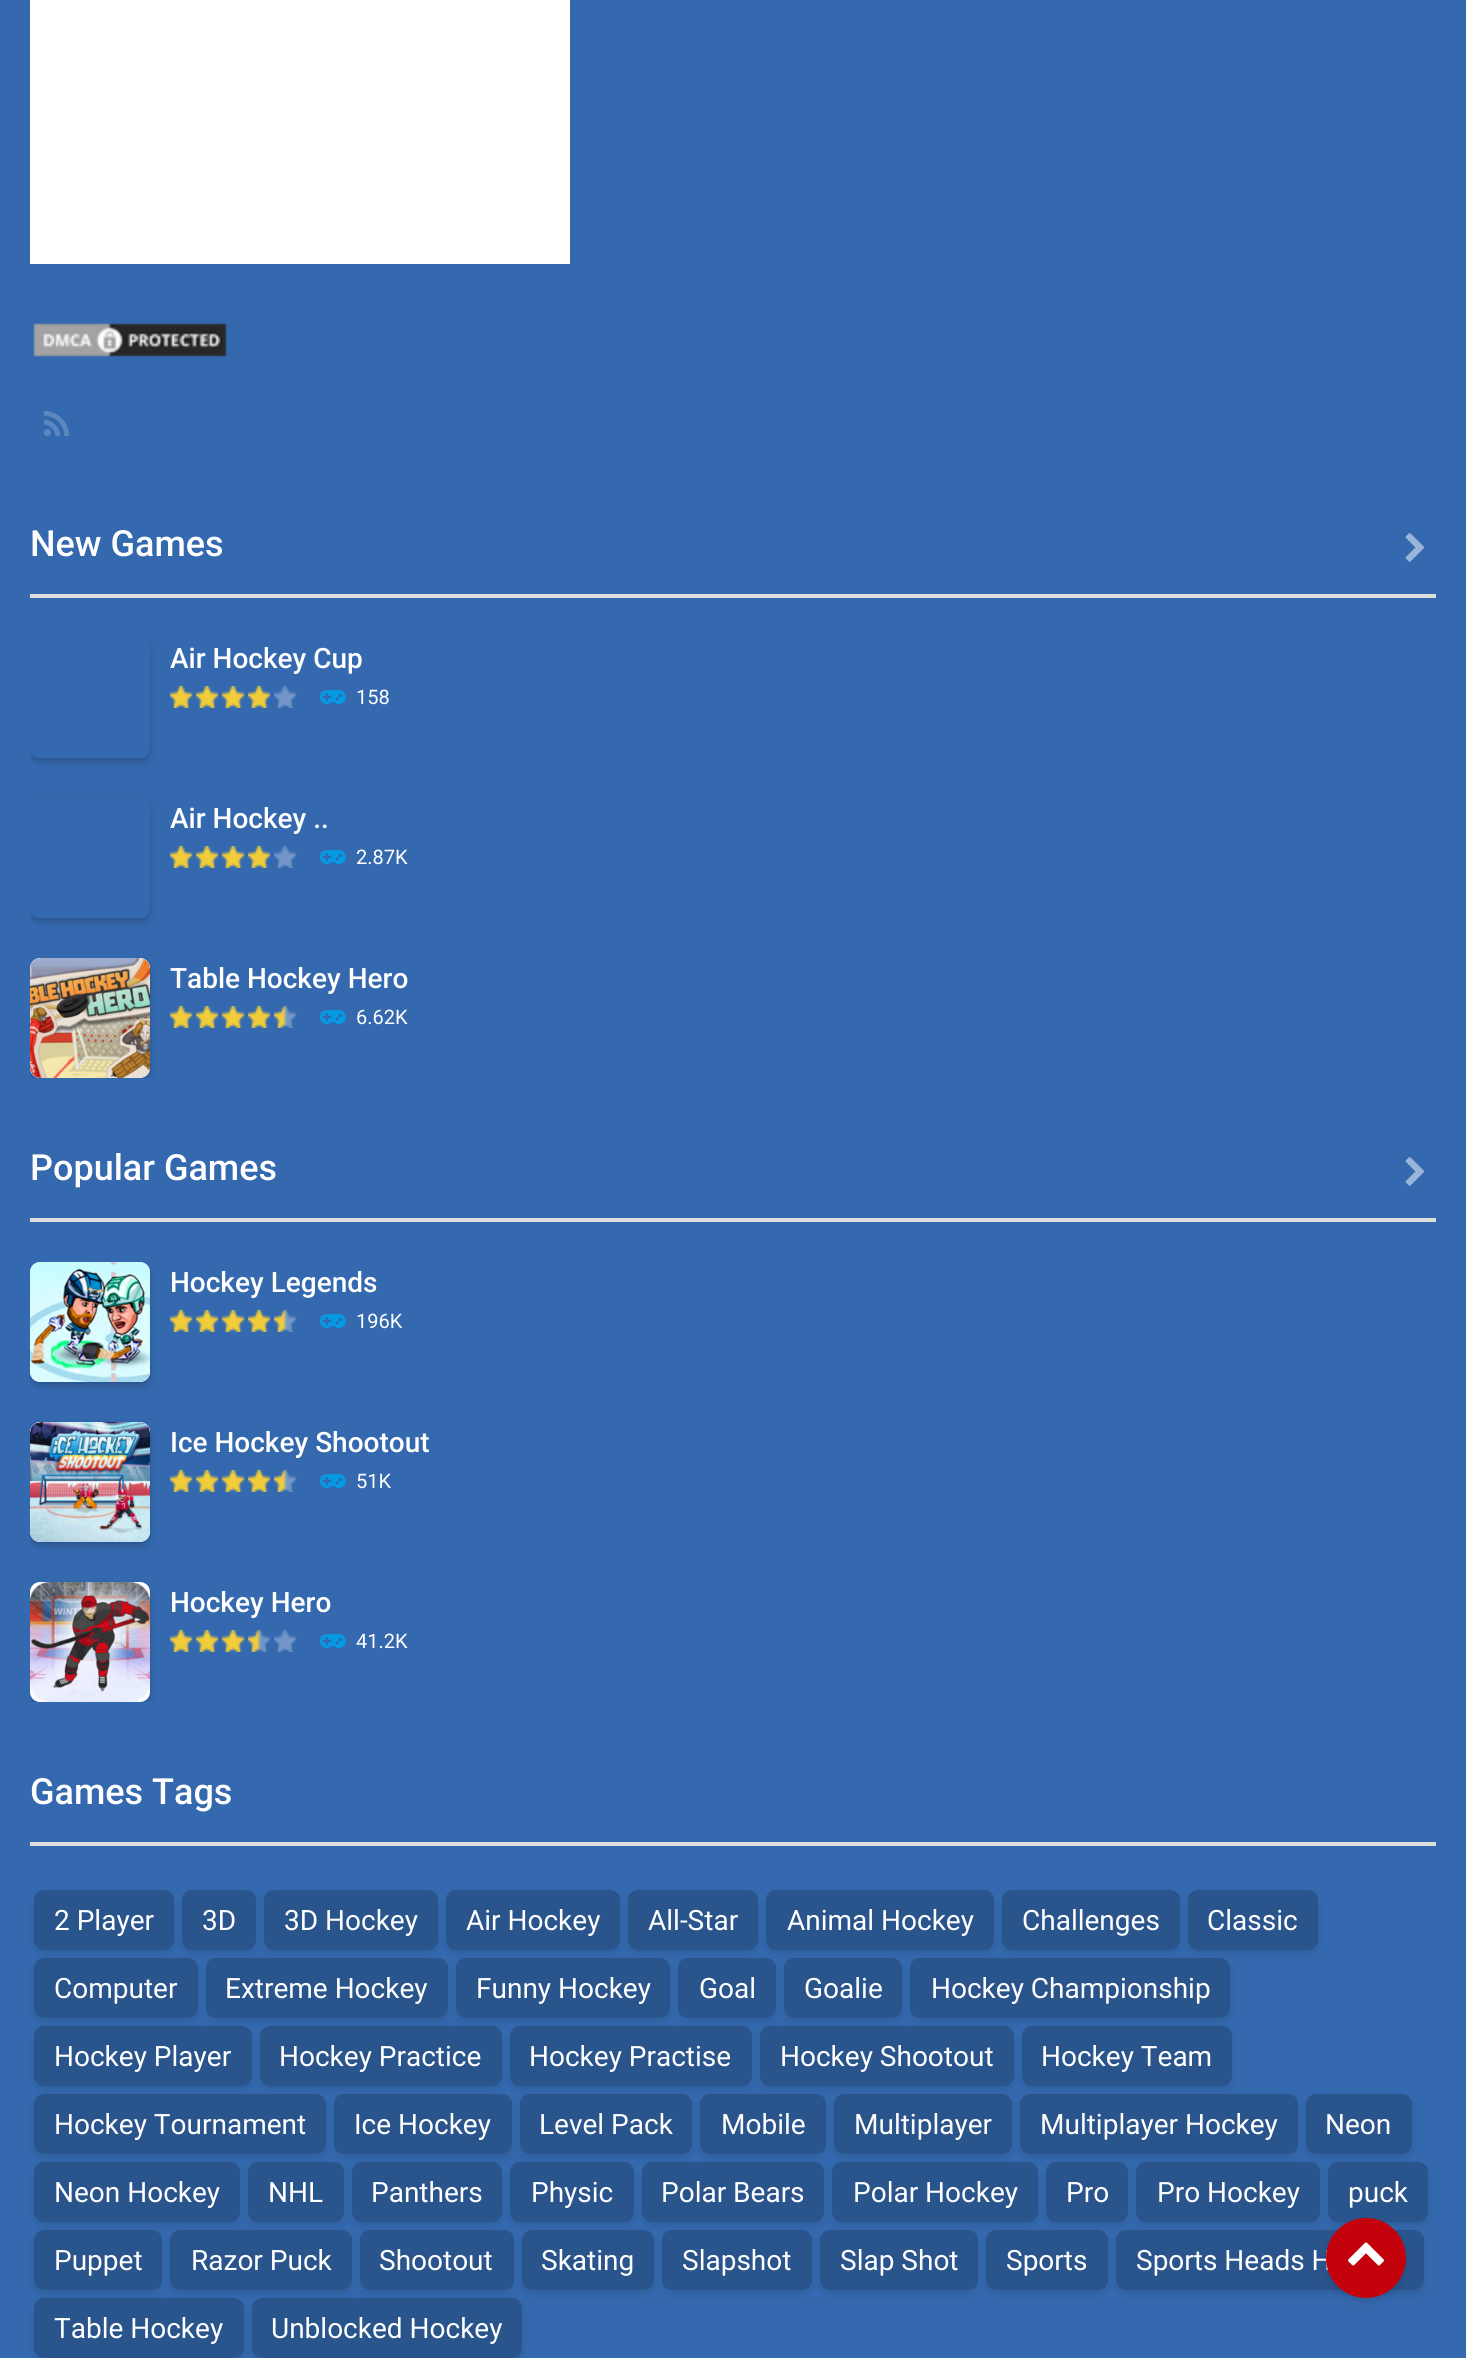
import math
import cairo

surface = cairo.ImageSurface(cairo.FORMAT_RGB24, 1466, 2358)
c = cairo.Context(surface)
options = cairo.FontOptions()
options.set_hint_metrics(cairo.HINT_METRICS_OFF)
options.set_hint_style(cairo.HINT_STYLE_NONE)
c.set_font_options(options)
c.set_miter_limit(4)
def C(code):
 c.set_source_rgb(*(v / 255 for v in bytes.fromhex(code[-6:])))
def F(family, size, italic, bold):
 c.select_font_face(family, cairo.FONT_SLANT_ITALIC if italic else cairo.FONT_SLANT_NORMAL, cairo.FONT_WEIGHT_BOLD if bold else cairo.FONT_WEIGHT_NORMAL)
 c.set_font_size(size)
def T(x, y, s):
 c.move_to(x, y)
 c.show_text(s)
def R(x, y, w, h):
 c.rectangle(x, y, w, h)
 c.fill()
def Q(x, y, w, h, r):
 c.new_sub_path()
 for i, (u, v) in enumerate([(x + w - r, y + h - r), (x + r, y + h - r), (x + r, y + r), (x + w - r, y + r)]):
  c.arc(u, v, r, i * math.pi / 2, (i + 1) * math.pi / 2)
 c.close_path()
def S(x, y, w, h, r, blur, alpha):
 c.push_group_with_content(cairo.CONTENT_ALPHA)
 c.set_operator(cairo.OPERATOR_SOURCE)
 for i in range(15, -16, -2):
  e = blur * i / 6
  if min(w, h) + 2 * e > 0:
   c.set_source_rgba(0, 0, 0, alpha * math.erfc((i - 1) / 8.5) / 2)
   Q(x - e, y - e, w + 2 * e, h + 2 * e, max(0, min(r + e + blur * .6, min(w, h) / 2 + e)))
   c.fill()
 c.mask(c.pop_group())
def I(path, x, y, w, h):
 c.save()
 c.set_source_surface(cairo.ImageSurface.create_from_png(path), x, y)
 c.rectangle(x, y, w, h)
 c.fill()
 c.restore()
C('3469af')
c.paint()
C('ffffff')
R(30,0,540,264)
I('1.png',33,323,194,34)
I('2.png',44,410,26,26)
C('dddddd')
R(30,594,1406,4)
F('Roboto Medium',36,0,0)
C('ffffff')
T(30,556,'New Games')
I('3.png',1405,533,20,29)
c.save()
c.rectangle(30,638,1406,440)
c.clip()
c.set_fill_rule(cairo.FILL_RULE_EVEN_ODD)
c.new_path()
c.move_to(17,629)
c.line_to(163,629)
c.line_to(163,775)
c.line_to(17,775)
c.close_path()
c.move_to(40,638)
c.line_to(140,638)
c.curve_to(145.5,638,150,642.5,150,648)
c.line_to(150,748)
c.curve_to(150,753.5,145.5,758,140,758)
c.line_to(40,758)
c.curve_to(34.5,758,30,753.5,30,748)
c.line_to(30,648)
c.curve_to(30,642.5,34.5,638,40,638)
c.close_path()
c.clip()
C('000000')
S(30,642,120,120,10,4,.2)
c.restore()
F('Roboto Medium',28,0,0)
T(170,668,'Air Hockey Cup')
I('4.png',170,686,23,22)
I('4.png',196,686,23,22)
I('4.png',222,686,23,22)
I('4.png',248,686,23,22)
I('5.png',274,686,23,22)
I('6.png',320,690,26,14)
F('Roboto',20,0,0)
T(356,704,'158')
c.save()
c.rectangle(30,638,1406,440)
c.clip()
c.set_fill_rule(cairo.FILL_RULE_EVEN_ODD)
c.new_path()
c.move_to(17,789)
c.line_to(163,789)
c.line_to(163,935)
c.line_to(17,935)
c.close_path()
c.move_to(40,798)
c.line_to(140,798)
c.curve_to(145.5,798,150,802.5,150,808)
c.line_to(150,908)
c.curve_to(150,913.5,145.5,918,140,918)
c.line_to(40,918)
c.curve_to(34.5,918,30,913.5,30,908)
c.line_to(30,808)
c.curve_to(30,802.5,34.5,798,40,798)
c.close_path()
c.clip()
C('000000')
S(30,802,120,120,10,4,.2)
c.restore()
F('Roboto Medium',28,0,0)
T(170,828,'Air Hockey ..')
I('4.png',170,846,23,22)
I('4.png',196,846,23,22)
I('4.png',222,846,23,22)
I('4.png',248,846,23,22)
I('5.png',274,846,23,22)
I('6.png',320,850,26,14)
F('Roboto',20,0,0)
T(356,864,'2.87K')
c.save()
c.rectangle(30,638,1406,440)
c.clip()
C('000000')
S(30,962,120,120,10,4,.2)
c.restore()
c.save()
Q(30,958,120,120,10)
c.clip()
C('000000')
S(30,962,120,120,10,4,.2)
c.restore()
Q(30,958,120,120,10)
c.fill()
I('7.png',30,958,120,120)
F('Roboto Medium',28,0,0)
T(170,988,'Table Hockey Hero')
I('4.png',170,1006,23,22)
I('4.png',196,1006,23,22)
I('4.png',222,1006,23,22)
I('4.png',248,1006,23,22)
I('8.png',274,1006,23,22)
I('6.png',320,1010,26,14)
F('Roboto',20,0,0)
T(356,1024,'6.62K')
C('dddddd')
R(30,1218,1406,4)
F('Roboto Medium',36,0,0)
C('ffffff')
T(30,1180,'Popular Games')
I('3.png',1405,1157,20,29)
c.save()
c.rectangle(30,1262,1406,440)
c.clip()
C('000000')
S(30,1266,120,120,10,4,.2)
c.restore()
c.save()
Q(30,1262,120,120,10)
c.clip()
C('000000')
S(30,1266,120,120,10,4,.2)
c.restore()
Q(30,1262,120,120,10)
c.fill()
I('9.png',30,1262,120,120)
F('Roboto Medium',28,0,0)
T(170,1292,'Hockey Legends')
I('4.png',170,1310,23,22)
I('4.png',196,1310,23,22)
I('4.png',222,1310,23,22)
I('4.png',248,1310,23,22)
I('8.png',274,1310,23,22)
I('6.png',320,1314,26,14)
F('Roboto',20,0,0)
T(356,1328,'196K')
c.save()
c.rectangle(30,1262,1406,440)
c.clip()
C('000000')
S(30,1426,120,120,10,4,.2)
c.restore()
c.save()
Q(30,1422,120,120,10)
c.clip()
C('000000')
S(30,1426,120,120,10,4,.2)
c.restore()
Q(30,1422,120,120,10)
c.fill()
I('10.png',30,1422,120,120)
F('Roboto Medium',28,0,0)
T(170,1452,'Ice Hockey Shootout')
I('4.png',170,1470,23,22)
I('4.png',196,1470,23,22)
I('4.png',222,1470,23,22)
I('4.png',248,1470,23,22)
I('8.png',274,1470,23,22)
I('6.png',320,1474,26,14)
F('Roboto',20,0,0)
T(356,1488,'51K')
c.save()
c.rectangle(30,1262,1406,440)
c.clip()
C('000000')
S(30,1586,120,120,10,4,.2)
c.restore()
c.save()
Q(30,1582,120,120,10)
c.clip()
C('000000')
S(30,1586,120,120,10,4,.2)
c.restore()
Q(30,1582,120,120,10)
c.fill()
I('11.png',30,1582,120,120)
F('Roboto Medium',28,0,0)
T(170,1612,'Hockey Hero')
I('4.png',170,1630,23,22)
I('4.png',196,1630,23,22)
I('4.png',222,1630,23,22)
I('8.png',248,1630,23,22)
I('5.png',274,1630,23,22)
I('6.png',320,1634,26,14)
F('Roboto',20,0,0)
T(356,1648,'41.2K')
C('dddddd')
R(30,1842,1406,4)
F('Roboto Medium',36,0,0)
C('ffffff')
T(30,1804,'Games Tags')
c.save()
c.set_fill_rule(cairo.FILL_RULE_EVEN_ODD)
c.new_path()
c.move_to(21,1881)
c.line_to(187,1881)
c.line_to(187,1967)
c.line_to(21,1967)
c.close_path()
c.move_to(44,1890)
c.line_to(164,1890)
c.curve_to(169.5,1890,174,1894.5,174,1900)
c.line_to(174,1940)
c.curve_to(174,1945.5,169.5,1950,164,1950)
c.line_to(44,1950)
c.curve_to(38.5,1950,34,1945.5,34,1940)
c.line_to(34,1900)
c.curve_to(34,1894.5,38.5,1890,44,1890)
c.close_path()
c.clip()
C('000000')
S(34,1894,140,60,10,4,.1)
c.restore()
c.set_source_rgba(0,0,0,0.2)
Q(34,1890,140,60,10)
c.fill()
F('Roboto',28,0,0)
C('ffffff')
T(54,1930,'2 Player')
c.save()
c.set_fill_rule(cairo.FILL_RULE_EVEN_ODD)
c.new_path()
c.move_to(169,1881)
c.line_to(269,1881)
c.line_to(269,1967)
c.line_to(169,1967)
c.close_path()
c.move_to(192,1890)
c.line_to(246,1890)
c.curve_to(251.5,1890,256,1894.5,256,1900)
c.line_to(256,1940)
c.curve_to(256,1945.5,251.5,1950,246,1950)
c.line_to(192,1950)
c.curve_to(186.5,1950,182,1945.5,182,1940)
c.line_to(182,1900)
c.curve_to(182,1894.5,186.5,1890,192,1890)
c.close_path()
c.clip()
C('000000')
S(182,1894,74,60,10,4,.1)
c.restore()
c.set_source_rgba(0,0,0,0.2)
Q(182,1890,74,60,10)
c.fill()
C('ffffff')
T(202,1930,'3D')
c.save()
c.set_fill_rule(cairo.FILL_RULE_EVEN_ODD)
c.new_path()
c.move_to(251,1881)
c.line_to(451,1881)
c.line_to(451,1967)
c.line_to(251,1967)
c.close_path()
c.move_to(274,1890)
c.line_to(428,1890)
c.curve_to(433.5,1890,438,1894.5,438,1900)
c.line_to(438,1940)
c.curve_to(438,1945.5,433.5,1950,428,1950)
c.line_to(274,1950)
c.curve_to(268.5,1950,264,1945.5,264,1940)
c.line_to(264,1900)
c.curve_to(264,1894.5,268.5,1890,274,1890)
c.close_path()
c.clip()
C('000000')
S(264,1894,174,60,10,4,.1)
c.restore()
c.set_source_rgba(0,0,0,0.2)
Q(264,1890,174,60,10)
c.fill()
C('ffffff')
T(284,1930,'3D Hockey')
c.save()
c.set_fill_rule(cairo.FILL_RULE_EVEN_ODD)
c.new_path()
c.move_to(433,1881)
c.line_to(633,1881)
c.line_to(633,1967)
c.line_to(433,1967)
c.close_path()
c.move_to(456,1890)
c.line_to(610,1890)
c.curve_to(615.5,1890,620,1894.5,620,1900)
c.line_to(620,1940)
c.curve_to(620,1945.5,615.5,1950,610,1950)
c.line_to(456,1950)
c.curve_to(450.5,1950,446,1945.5,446,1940)
c.line_to(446,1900)
c.curve_to(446,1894.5,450.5,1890,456,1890)
c.close_path()
c.clip()
C('000000')
S(446,1894,174,60,10,4,.1)
c.restore()
c.set_source_rgba(0,0,0,0.2)
Q(446,1890,174,60,10)
c.fill()
C('ffffff')
T(466,1930,'Air Hockey')
c.save()
c.set_fill_rule(cairo.FILL_RULE_EVEN_ODD)
c.new_path()
c.move_to(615,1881)
c.line_to(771,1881)
c.line_to(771,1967)
c.line_to(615,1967)
c.close_path()
c.move_to(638,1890)
c.line_to(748,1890)
c.curve_to(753.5,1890,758,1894.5,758,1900)
c.line_to(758,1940)
c.curve_to(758,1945.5,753.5,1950,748,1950)
c.line_to(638,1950)
c.curve_to(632.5,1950,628,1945.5,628,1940)
c.line_to(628,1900)
c.curve_to(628,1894.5,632.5,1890,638,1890)
c.close_path()
c.clip()
C('000000')
S(628,1894,130,60,10,4,.1)
c.restore()
c.set_source_rgba(0,0,0,0.2)
Q(628,1890,130,60,10)
c.fill()
C('ffffff')
T(648,1930,'All-Star')
c.save()
c.set_fill_rule(cairo.FILL_RULE_EVEN_ODD)
c.new_path()
c.move_to(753,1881)
c.line_to(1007,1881)
c.line_to(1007,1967)
c.line_to(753,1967)
c.close_path()
c.move_to(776,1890)
c.line_to(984,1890)
c.curve_to(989.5,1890,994,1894.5,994,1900)
c.line_to(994,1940)
c.curve_to(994,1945.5,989.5,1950,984,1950)
c.line_to(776,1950)
c.curve_to(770.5,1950,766,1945.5,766,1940)
c.line_to(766,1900)
c.curve_to(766,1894.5,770.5,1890,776,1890)
c.close_path()
c.clip()
C('000000')
S(766,1894,228,60,10,4,.1)
c.restore()
c.set_source_rgba(0,0,0,0.2)
Q(766,1890,228,60,10)
c.fill()
C('ffffff')
T(787,1930,'Animal Hockey')
c.save()
c.set_fill_rule(cairo.FILL_RULE_EVEN_ODD)
c.new_path()
c.move_to(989,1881)
c.line_to(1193,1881)
c.line_to(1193,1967)
c.line_to(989,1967)
c.close_path()
c.move_to(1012,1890)
c.line_to(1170,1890)
c.curve_to(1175.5,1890,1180,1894.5,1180,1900)
c.line_to(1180,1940)
c.curve_to(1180,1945.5,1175.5,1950,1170,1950)
c.line_to(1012,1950)
c.curve_to(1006.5,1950,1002,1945.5,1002,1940)
c.line_to(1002,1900)
c.curve_to(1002,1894.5,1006.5,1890,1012,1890)
c.close_path()
c.clip()
C('000000')
S(1002,1894,178,60,10,4,.1)
c.restore()
c.set_source_rgba(0,0,0,0.2)
Q(1002,1890,178,60,10)
c.fill()
C('ffffff')
T(1022,1930,'Challenges')
c.save()
c.set_fill_rule(cairo.FILL_RULE_EVEN_ODD)
c.new_path()
c.move_to(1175,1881)
c.line_to(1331,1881)
c.line_to(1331,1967)
c.line_to(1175,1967)
c.close_path()
c.move_to(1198,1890)
c.line_to(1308,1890)
c.curve_to(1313.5,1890,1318,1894.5,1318,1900)
c.line_to(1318,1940)
c.curve_to(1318,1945.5,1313.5,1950,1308,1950)
c.line_to(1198,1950)
c.curve_to(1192.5,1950,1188,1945.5,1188,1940)
c.line_to(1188,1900)
c.curve_to(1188,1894.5,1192.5,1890,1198,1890)
c.close_path()
c.clip()
C('000000')
S(1188,1894,130,60,10,4,.1)
c.restore()
c.set_source_rgba(0,0,0,0.2)
Q(1188,1890,130,60,10)
c.fill()
C('ffffff')
T(1207,1930,'Classic')
c.save()
c.set_fill_rule(cairo.FILL_RULE_EVEN_ODD)
c.new_path()
c.move_to(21,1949)
c.line_to(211,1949)
c.line_to(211,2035)
c.line_to(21,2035)
c.close_path()
c.move_to(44,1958)
c.line_to(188,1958)
c.curve_to(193.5,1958,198,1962.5,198,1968)
c.line_to(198,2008)
c.curve_to(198,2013.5,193.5,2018,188,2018)
c.line_to(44,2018)
c.curve_to(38.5,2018,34,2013.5,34,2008)
c.line_to(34,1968)
c.curve_to(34,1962.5,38.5,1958,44,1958)
c.close_path()
c.clip()
C('000000')
S(34,1962,164,60,10,4,.1)
c.restore()
c.set_source_rgba(0,0,0,0.2)
Q(34,1958,164,60,10)
c.fill()
C('ffffff')
T(54,1998,'Computer')
c.save()
c.set_fill_rule(cairo.FILL_RULE_EVEN_ODD)
c.new_path()
c.move_to(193,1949)
c.line_to(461,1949)
c.line_to(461,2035)
c.line_to(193,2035)
c.close_path()
c.move_to(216,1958)
c.line_to(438,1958)
c.curve_to(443.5,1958,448,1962.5,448,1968)
c.line_to(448,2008)
c.curve_to(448,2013.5,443.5,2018,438,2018)
c.line_to(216,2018)
c.curve_to(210.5,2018,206,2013.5,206,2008)
c.line_to(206,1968)
c.curve_to(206,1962.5,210.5,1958,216,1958)
c.close_path()
c.clip()
C('000000')
S(206,1962,242,60,10,4,.1)
c.restore()
c.set_source_rgba(0,0,0,0.2)
Q(206,1958,242,60,10)
c.fill()
C('ffffff')
T(225,1998,'Extreme Hockey')
c.save()
c.set_fill_rule(cairo.FILL_RULE_EVEN_ODD)
c.new_path()
c.move_to(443,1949)
c.line_to(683,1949)
c.line_to(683,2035)
c.line_to(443,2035)
c.close_path()
c.move_to(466,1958)
c.line_to(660,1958)
c.curve_to(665.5,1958,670,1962.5,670,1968)
c.line_to(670,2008)
c.curve_to(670,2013.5,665.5,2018,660,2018)
c.line_to(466,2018)
c.curve_to(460.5,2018,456,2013.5,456,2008)
c.line_to(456,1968)
c.curve_to(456,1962.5,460.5,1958,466,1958)
c.close_path()
c.clip()
C('000000')
S(456,1962,214,60,10,4,.1)
c.restore()
c.set_source_rgba(0,0,0,0.2)
Q(456,1958,214,60,10)
c.fill()
C('ffffff')
T(476,1998,'Funny Hockey')
c.save()
c.set_fill_rule(cairo.FILL_RULE_EVEN_ODD)
c.new_path()
c.move_to(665,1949)
c.line_to(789,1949)
c.line_to(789,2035)
c.line_to(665,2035)
c.close_path()
c.move_to(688,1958)
c.line_to(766,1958)
c.curve_to(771.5,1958,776,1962.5,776,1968)
c.line_to(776,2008)
c.curve_to(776,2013.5,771.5,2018,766,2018)
c.line_to(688,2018)
c.curve_to(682.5,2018,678,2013.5,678,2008)
c.line_to(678,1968)
c.curve_to(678,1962.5,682.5,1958,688,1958)
c.close_path()
c.clip()
C('000000')
S(678,1962,98,60,10,4,.1)
c.restore()
c.set_source_rgba(0,0,0,0.2)
Q(678,1958,98,60,10)
c.fill()
C('ffffff')
T(699,1998,'Goal')
c.save()
c.set_fill_rule(cairo.FILL_RULE_EVEN_ODD)
c.new_path()
c.move_to(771,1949)
c.line_to(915,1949)
c.line_to(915,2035)
c.line_to(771,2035)
c.close_path()
c.move_to(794,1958)
c.line_to(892,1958)
c.curve_to(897.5,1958,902,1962.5,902,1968)
c.line_to(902,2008)
c.curve_to(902,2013.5,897.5,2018,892,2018)
c.line_to(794,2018)
c.curve_to(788.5,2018,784,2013.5,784,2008)
c.line_to(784,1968)
c.curve_to(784,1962.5,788.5,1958,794,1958)
c.close_path()
c.clip()
C('000000')
S(784,1962,118,60,10,4,.1)
c.restore()
c.set_source_rgba(0,0,0,0.2)
Q(784,1958,118,60,10)
c.fill()
C('ffffff')
T(804,1998,'Goalie')
c.save()
c.set_fill_rule(cairo.FILL_RULE_EVEN_ODD)
c.new_path()
c.move_to(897,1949)
c.line_to(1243,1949)
c.line_to(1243,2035)
c.line_to(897,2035)
c.close_path()
c.move_to(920,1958)
c.line_to(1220,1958)
c.curve_to(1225.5,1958,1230,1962.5,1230,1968)
c.line_to(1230,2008)
c.curve_to(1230,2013.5,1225.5,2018,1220,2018)
c.line_to(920,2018)
c.curve_to(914.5,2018,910,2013.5,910,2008)
c.line_to(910,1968)
c.curve_to(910,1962.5,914.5,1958,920,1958)
c.close_path()
c.clip()
C('000000')
S(910,1962,320,60,10,4,.1)
c.restore()
c.set_source_rgba(0,0,0,0.2)
Q(910,1958,320,60,10)
c.fill()
C('ffffff')
T(931,1998,'Hockey Championship')
c.save()
c.set_fill_rule(cairo.FILL_RULE_EVEN_ODD)
c.new_path()
c.move_to(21,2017)
c.line_to(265,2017)
c.line_to(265,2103)
c.line_to(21,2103)
c.close_path()
c.move_to(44,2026)
c.line_to(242,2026)
c.curve_to(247.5,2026,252,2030.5,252,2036)
c.line_to(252,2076)
c.curve_to(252,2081.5,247.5,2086,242,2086)
c.line_to(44,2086)
c.curve_to(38.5,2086,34,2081.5,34,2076)
c.line_to(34,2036)
c.curve_to(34,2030.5,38.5,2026,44,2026)
c.close_path()
c.clip()
C('000000')
S(34,2030,218,60,10,4,.1)
c.restore()
c.set_source_rgba(0,0,0,0.2)
Q(34,2026,218,60,10)
c.fill()
C('ffffff')
T(54,2066,'Hockey Player')
c.save()
c.set_fill_rule(cairo.FILL_RULE_EVEN_ODD)
c.new_path()
c.move_to(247,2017)
c.line_to(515,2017)
c.line_to(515,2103)
c.line_to(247,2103)
c.close_path()
c.move_to(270,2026)
c.line_to(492,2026)
c.curve_to(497.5,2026,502,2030.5,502,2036)
c.line_to(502,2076)
c.curve_to(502,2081.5,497.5,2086,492,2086)
c.line_to(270,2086)
c.curve_to(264.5,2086,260,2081.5,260,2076)
c.line_to(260,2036)
c.curve_to(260,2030.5,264.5,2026,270,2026)
c.close_path()
c.clip()
C('000000')
S(260,2030,242,60,10,4,.1)
c.restore()
c.set_source_rgba(0,0,0,0.2)
Q(260,2026,242,60,10)
c.fill()
C('ffffff')
T(279,2066,'Hockey Practice')
c.save()
c.set_fill_rule(cairo.FILL_RULE_EVEN_ODD)
c.new_path()
c.move_to(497,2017)
c.line_to(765,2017)
c.line_to(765,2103)
c.line_to(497,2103)
c.close_path()
c.move_to(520,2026)
c.line_to(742,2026)
c.curve_to(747.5,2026,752,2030.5,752,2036)
c.line_to(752,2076)
c.curve_to(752,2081.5,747.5,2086,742,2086)
c.line_to(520,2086)
c.curve_to(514.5,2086,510,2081.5,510,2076)
c.line_to(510,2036)
c.curve_to(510,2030.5,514.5,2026,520,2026)
c.close_path()
c.clip()
C('000000')
S(510,2030,242,60,10,4,.1)
c.restore()
c.set_source_rgba(0,0,0,0.2)
Q(510,2026,242,60,10)
c.fill()
C('ffffff')
T(529,2066,'Hockey Practise')
c.save()
c.set_fill_rule(cairo.FILL_RULE_EVEN_ODD)
c.new_path()
c.move_to(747,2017)
c.line_to(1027,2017)
c.line_to(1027,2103)
c.line_to(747,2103)
c.close_path()
c.move_to(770,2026)
c.line_to(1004,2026)
c.curve_to(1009.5,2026,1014,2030.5,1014,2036)
c.line_to(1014,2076)
c.curve_to(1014,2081.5,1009.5,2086,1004,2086)
c.line_to(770,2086)
c.curve_to(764.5,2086,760,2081.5,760,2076)
c.line_to(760,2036)
c.curve_to(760,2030.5,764.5,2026,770,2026)
c.close_path()
c.clip()
C('000000')
S(760,2030,254,60,10,4,.1)
c.restore()
c.set_source_rgba(0,0,0,0.2)
Q(760,2026,254,60,10)
c.fill()
C('ffffff')
T(780,2066,'Hockey Shootout')
c.save()
c.set_fill_rule(cairo.FILL_RULE_EVEN_ODD)
c.new_path()
c.move_to(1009,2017)
c.line_to(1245,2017)
c.line_to(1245,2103)
c.line_to(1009,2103)
c.close_path()
c.move_to(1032,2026)
c.line_to(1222,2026)
c.curve_to(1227.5,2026,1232,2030.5,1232,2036)
c.line_to(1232,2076)
c.curve_to(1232,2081.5,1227.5,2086,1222,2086)
c.line_to(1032,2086)
c.curve_to(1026.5,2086,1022,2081.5,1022,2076)
c.line_to(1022,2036)
c.curve_to(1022,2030.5,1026.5,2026,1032,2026)
c.close_path()
c.clip()
C('000000')
S(1022,2030,210,60,10,4,.1)
c.restore()
c.set_source_rgba(0,0,0,0.2)
Q(1022,2026,210,60,10)
c.fill()
C('ffffff')
T(1041,2066,'Hockey Team')
c.save()
c.set_fill_rule(cairo.FILL_RULE_EVEN_ODD)
c.new_path()
c.move_to(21,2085)
c.line_to(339,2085)
c.line_to(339,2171)
c.line_to(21,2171)
c.close_path()
c.move_to(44,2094)
c.line_to(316,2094)
c.curve_to(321.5,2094,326,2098.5,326,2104)
c.line_to(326,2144)
c.curve_to(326,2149.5,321.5,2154,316,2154)
c.line_to(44,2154)
c.curve_to(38.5,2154,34,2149.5,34,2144)
c.line_to(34,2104)
c.curve_to(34,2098.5,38.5,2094,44,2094)
c.close_path()
c.clip()
C('000000')
S(34,2098,292,60,10,4,.1)
c.restore()
c.set_source_rgba(0,0,0,0.2)
Q(34,2094,292,60,10)
c.fill()
C('ffffff')
T(54,2134,'Hockey Tournament')
c.save()
c.set_fill_rule(cairo.FILL_RULE_EVEN_ODD)
c.new_path()
c.move_to(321,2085)
c.line_to(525,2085)
c.line_to(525,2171)
c.line_to(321,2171)
c.close_path()
c.move_to(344,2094)
c.line_to(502,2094)
c.curve_to(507.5,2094,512,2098.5,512,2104)
c.line_to(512,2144)
c.curve_to(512,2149.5,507.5,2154,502,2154)
c.line_to(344,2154)
c.curve_to(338.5,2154,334,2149.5,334,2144)
c.line_to(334,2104)
c.curve_to(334,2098.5,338.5,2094,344,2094)
c.close_path()
c.clip()
C('000000')
S(334,2098,178,60,10,4,.1)
c.restore()
c.set_source_rgba(0,0,0,0.2)
Q(334,2094,178,60,10)
c.fill()
C('ffffff')
T(354,2134,'Ice Hockey')
c.save()
c.set_fill_rule(cairo.FILL_RULE_EVEN_ODD)
c.new_path()
c.move_to(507,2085)
c.line_to(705,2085)
c.line_to(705,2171)
c.line_to(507,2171)
c.close_path()
c.move_to(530,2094)
c.line_to(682,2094)
c.curve_to(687.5,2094,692,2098.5,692,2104)
c.line_to(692,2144)
c.curve_to(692,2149.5,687.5,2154,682,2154)
c.line_to(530,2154)
c.curve_to(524.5,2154,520,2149.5,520,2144)
c.line_to(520,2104)
c.curve_to(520,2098.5,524.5,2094,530,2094)
c.close_path()
c.clip()
C('000000')
S(520,2098,172,60,10,4,.1)
c.restore()
c.set_source_rgba(0,0,0,0.2)
Q(520,2094,172,60,10)
c.fill()
C('ffffff')
T(539,2134,'Level Pack')
c.save()
c.set_fill_rule(cairo.FILL_RULE_EVEN_ODD)
c.new_path()
c.move_to(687,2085)
c.line_to(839,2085)
c.line_to(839,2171)
c.line_to(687,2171)
c.close_path()
c.move_to(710,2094)
c.line_to(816,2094)
c.curve_to(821.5,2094,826,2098.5,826,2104)
c.line_to(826,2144)
c.curve_to(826,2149.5,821.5,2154,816,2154)
c.line_to(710,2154)
c.curve_to(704.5,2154,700,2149.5,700,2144)
c.line_to(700,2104)
c.curve_to(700,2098.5,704.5,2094,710,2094)
c.close_path()
c.clip()
C('000000')
S(700,2098,126,60,10,4,.1)
c.restore()
c.set_source_rgba(0,0,0,0.2)
Q(700,2094,126,60,10)
c.fill()
C('ffffff')
T(721,2134,'Mobile')
c.save()
c.set_fill_rule(cairo.FILL_RULE_EVEN_ODD)
c.new_path()
c.move_to(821,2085)
c.line_to(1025,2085)
c.line_to(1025,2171)
c.line_to(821,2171)
c.close_path()
c.move_to(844,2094)
c.line_to(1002,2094)
c.curve_to(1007.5,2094,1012,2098.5,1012,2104)
c.line_to(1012,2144)
c.curve_to(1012,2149.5,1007.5,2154,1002,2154)
c.line_to(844,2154)
c.curve_to(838.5,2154,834,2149.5,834,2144)
c.line_to(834,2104)
c.curve_to(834,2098.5,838.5,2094,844,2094)
c.close_path()
c.clip()
C('000000')
S(834,2098,178,60,10,4,.1)
c.restore()
c.set_source_rgba(0,0,0,0.2)
Q(834,2094,178,60,10)
c.fill()
C('ffffff')
T(854,2134,'Multiplayer')
c.save()
c.set_fill_rule(cairo.FILL_RULE_EVEN_ODD)
c.new_path()
c.move_to(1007,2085)
c.line_to(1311,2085)
c.line_to(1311,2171)
c.line_to(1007,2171)
c.close_path()
c.move_to(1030,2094)
c.line_to(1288,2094)
c.curve_to(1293.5,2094,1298,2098.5,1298,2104)
c.line_to(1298,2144)
c.curve_to(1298,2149.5,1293.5,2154,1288,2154)
c.line_to(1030,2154)
c.curve_to(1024.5,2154,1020,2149.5,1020,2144)
c.line_to(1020,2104)
c.curve_to(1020,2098.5,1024.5,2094,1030,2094)
c.close_path()
c.clip()
C('000000')
S(1020,2098,278,60,10,4,.1)
c.restore()
c.set_source_rgba(0,0,0,0.2)
Q(1020,2094,278,60,10)
c.fill()
C('ffffff')
T(1040,2134,'Multiplayer Hockey')
c.save()
c.set_fill_rule(cairo.FILL_RULE_EVEN_ODD)
c.new_path()
c.move_to(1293,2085)
c.line_to(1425,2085)
c.line_to(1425,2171)
c.line_to(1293,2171)
c.close_path()
c.move_to(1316,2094)
c.line_to(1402,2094)
c.curve_to(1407.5,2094,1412,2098.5,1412,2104)
c.line_to(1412,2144)
c.curve_to(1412,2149.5,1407.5,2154,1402,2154)
c.line_to(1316,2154)
c.curve_to(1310.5,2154,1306,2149.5,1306,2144)
c.line_to(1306,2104)
c.curve_to(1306,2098.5,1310.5,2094,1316,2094)
c.close_path()
c.clip()
C('000000')
S(1306,2098,106,60,10,4,.1)
c.restore()
c.set_source_rgba(0,0,0,0.2)
Q(1306,2094,106,60,10)
c.fill()
C('ffffff')
T(1325,2134,'Neon')
c.save()
c.set_fill_rule(cairo.FILL_RULE_EVEN_ODD)
c.new_path()
c.move_to(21,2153)
c.line_to(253,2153)
c.line_to(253,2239)
c.line_to(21,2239)
c.close_path()
c.move_to(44,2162)
c.line_to(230,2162)
c.curve_to(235.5,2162,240,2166.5,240,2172)
c.line_to(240,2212)
c.curve_to(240,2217.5,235.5,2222,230,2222)
c.line_to(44,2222)
c.curve_to(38.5,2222,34,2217.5,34,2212)
c.line_to(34,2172)
c.curve_to(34,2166.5,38.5,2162,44,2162)
c.close_path()
c.clip()
C('000000')
S(34,2166,206,60,10,4,.1)
c.restore()
c.set_source_rgba(0,0,0,0.2)
Q(34,2162,206,60,10)
c.fill()
C('ffffff')
T(54,2202,'Neon Hockey')
c.save()
c.set_fill_rule(cairo.FILL_RULE_EVEN_ODD)
c.new_path()
c.move_to(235,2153)
c.line_to(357,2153)
c.line_to(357,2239)
c.line_to(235,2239)
c.close_path()
c.move_to(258,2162)
c.line_to(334,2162)
c.curve_to(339.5,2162,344,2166.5,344,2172)
c.line_to(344,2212)
c.curve_to(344,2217.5,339.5,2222,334,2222)
c.line_to(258,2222)
c.curve_to(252.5,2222,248,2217.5,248,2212)
c.line_to(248,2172)
c.curve_to(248,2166.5,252.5,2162,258,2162)
c.close_path()
c.clip()
C('000000')
S(248,2166,96,60,10,4,.1)
c.restore()
c.set_source_rgba(0,0,0,0.2)
Q(248,2162,96,60,10)
c.fill()
C('ffffff')
T(268,2202,'NHL')
c.save()
c.set_fill_rule(cairo.FILL_RULE_EVEN_ODD)
c.new_path()
c.move_to(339,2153)
c.line_to(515,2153)
c.line_to(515,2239)
c.line_to(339,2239)
c.close_path()
c.move_to(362,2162)
c.line_to(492,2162)
c.curve_to(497.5,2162,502,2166.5,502,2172)
c.line_to(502,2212)
c.curve_to(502,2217.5,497.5,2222,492,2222)
c.line_to(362,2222)
c.curve_to(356.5,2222,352,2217.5,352,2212)
c.line_to(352,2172)
c.curve_to(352,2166.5,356.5,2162,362,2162)
c.close_path()
c.clip()
C('000000')
S(352,2166,150,60,10,4,.1)
c.restore()
c.set_source_rgba(0,0,0,0.2)
Q(352,2162,150,60,10)
c.fill()
C('ffffff')
T(371,2202,'Panthers')
c.save()
c.set_fill_rule(cairo.FILL_RULE_EVEN_ODD)
c.new_path()
c.move_to(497,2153)
c.line_to(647,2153)
c.line_to(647,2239)
c.line_to(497,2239)
c.close_path()
c.move_to(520,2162)
c.line_to(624,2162)
c.curve_to(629.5,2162,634,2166.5,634,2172)
c.line_to(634,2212)
c.curve_to(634,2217.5,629.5,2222,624,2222)
c.line_to(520,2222)
c.curve_to(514.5,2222,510,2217.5,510,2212)
c.line_to(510,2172)
c.curve_to(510,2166.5,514.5,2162,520,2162)
c.close_path()
c.clip()
C('000000')
S(510,2166,124,60,10,4,.1)
c.restore()
c.set_source_rgba(0,0,0,0.2)
Q(510,2162,124,60,10)
c.fill()
C('ffffff')
T(531,2202,'Physic')
c.save()
c.set_fill_rule(cairo.FILL_RULE_EVEN_ODD)
c.new_path()
c.move_to(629,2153)
c.line_to(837,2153)
c.line_to(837,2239)
c.line_to(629,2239)
c.close_path()
c.move_to(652,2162)
c.line_to(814,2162)
c.curve_to(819.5,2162,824,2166.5,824,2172)
c.line_to(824,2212)
c.curve_to(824,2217.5,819.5,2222,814,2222)
c.line_to(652,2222)
c.curve_to(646.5,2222,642,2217.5,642,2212)
c.line_to(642,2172)
c.curve_to(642,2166.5,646.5,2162,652,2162)
c.close_path()
c.clip()
C('000000')
S(642,2166,182,60,10,4,.1)
c.restore()
c.set_source_rgba(0,0,0,0.2)
Q(642,2162,182,60,10)
c.fill()
C('ffffff')
T(661,2202,'Polar Bears')
c.save()
c.set_fill_rule(cairo.FILL_RULE_EVEN_ODD)
c.new_path()
c.move_to(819,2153)
c.line_to(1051,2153)
c.line_to(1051,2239)
c.line_to(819,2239)
c.close_path()
c.move_to(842,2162)
c.line_to(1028,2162)
c.curve_to(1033.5,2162,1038,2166.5,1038,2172)
c.line_to(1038,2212)
c.curve_to(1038,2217.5,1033.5,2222,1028,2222)
c.line_to(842,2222)
c.curve_to(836.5,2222,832,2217.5,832,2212)
c.line_to(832,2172)
c.curve_to(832,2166.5,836.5,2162,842,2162)
c.close_path()
c.clip()
C('000000')
S(832,2166,206,60,10,4,.1)
c.restore()
c.set_source_rgba(0,0,0,0.2)
Q(832,2162,206,60,10)
c.fill()
C('ffffff')
T(853,2202,'Polar Hockey')
c.save()
c.set_fill_rule(cairo.FILL_RULE_EVEN_ODD)
c.new_path()
c.move_to(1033,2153)
c.line_to(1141,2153)
c.line_to(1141,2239)
c.line_to(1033,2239)
c.close_path()
c.move_to(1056,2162)
c.line_to(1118,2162)
c.curve_to(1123.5,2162,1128,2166.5,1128,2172)
c.line_to(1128,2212)
c.curve_to(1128,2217.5,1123.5,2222,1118,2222)
c.line_to(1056,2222)
c.curve_to(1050.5,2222,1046,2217.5,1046,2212)
c.line_to(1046,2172)
c.curve_to(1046,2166.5,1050.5,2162,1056,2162)
c.close_path()
c.clip()
C('000000')
S(1046,2166,82,60,10,4,.1)
c.restore()
c.set_source_rgba(0,0,0,0.2)
Q(1046,2162,82,60,10)
c.fill()
C('ffffff')
T(1066,2202,'Pro')
c.save()
c.set_fill_rule(cairo.FILL_RULE_EVEN_ODD)
c.new_path()
c.move_to(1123,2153)
c.line_to(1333,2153)
c.line_to(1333,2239)
c.line_to(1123,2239)
c.close_path()
c.move_to(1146,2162)
c.line_to(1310,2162)
c.curve_to(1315.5,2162,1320,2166.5,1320,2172)
c.line_to(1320,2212)
c.curve_to(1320,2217.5,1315.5,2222,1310,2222)
c.line_to(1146,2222)
c.curve_to(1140.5,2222,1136,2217.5,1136,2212)
c.line_to(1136,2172)
c.curve_to(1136,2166.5,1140.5,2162,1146,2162)
c.close_path()
c.clip()
C('000000')
S(1136,2166,184,60,10,4,.1)
c.restore()
c.set_source_rgba(0,0,0,0.2)
Q(1136,2162,184,60,10)
c.fill()
C('ffffff')
T(1157,2202,'Pro Hockey')
c.save()
c.set_fill_rule(cairo.FILL_RULE_EVEN_ODD)
c.new_path()
c.move_to(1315,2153)
c.line_to(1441,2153)
c.line_to(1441,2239)
c.line_to(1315,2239)
c.close_path()
c.move_to(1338,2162)
c.line_to(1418,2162)
c.curve_to(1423.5,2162,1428,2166.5,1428,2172)
c.line_to(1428,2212)
c.curve_to(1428,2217.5,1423.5,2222,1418,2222)
c.line_to(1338,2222)
c.curve_to(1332.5,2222,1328,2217.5,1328,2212)
c.line_to(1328,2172)
c.curve_to(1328,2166.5,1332.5,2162,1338,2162)
c.close_path()
c.clip()
C('000000')
S(1328,2166,100,60,10,4,.1)
c.restore()
c.set_source_rgba(0,0,0,0.2)
Q(1328,2162,100,60,10)
c.fill()
C('ffffff')
T(1348,2202,'puck')
c.save()
c.set_fill_rule(cairo.FILL_RULE_EVEN_ODD)
c.new_path()
c.move_to(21,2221)
c.line_to(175,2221)
c.line_to(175,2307)
c.line_to(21,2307)
c.close_path()
c.move_to(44,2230)
c.line_to(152,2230)
c.curve_to(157.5,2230,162,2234.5,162,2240)
c.line_to(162,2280)
c.curve_to(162,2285.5,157.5,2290,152,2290)
c.line_to(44,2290)
c.curve_to(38.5,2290,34,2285.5,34,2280)
c.line_to(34,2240)
c.curve_to(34,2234.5,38.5,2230,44,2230)
c.close_path()
c.clip()
C('000000')
S(34,2234,128,60,10,4,.1)
c.restore()
c.set_source_rgba(0,0,0,0.2)
Q(34,2230,128,60,10)
c.fill()
C('ffffff')
T(54,2270,'Puppet')
c.save()
c.set_fill_rule(cairo.FILL_RULE_EVEN_ODD)
c.new_path()
c.move_to(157,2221)
c.line_to(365,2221)
c.line_to(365,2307)
c.line_to(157,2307)
c.close_path()
c.move_to(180,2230)
c.line_to(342,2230)
c.curve_to(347.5,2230,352,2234.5,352,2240)
c.line_to(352,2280)
c.curve_to(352,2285.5,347.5,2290,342,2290)
c.line_to(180,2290)
c.curve_to(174.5,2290,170,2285.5,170,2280)
c.line_to(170,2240)
c.curve_to(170,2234.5,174.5,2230,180,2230)
c.close_path()
c.clip()
C('000000')
S(170,2234,182,60,10,4,.1)
c.restore()
c.set_source_rgba(0,0,0,0.2)
Q(170,2230,182,60,10)
c.fill()
C('ffffff')
T(191,2270,'Razor Puck')
c.save()
c.set_fill_rule(cairo.FILL_RULE_EVEN_ODD)
c.new_path()
c.move_to(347,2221)
c.line_to(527,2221)
c.line_to(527,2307)
c.line_to(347,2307)
c.close_path()
c.move_to(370,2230)
c.line_to(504,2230)
c.curve_to(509.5,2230,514,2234.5,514,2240)
c.line_to(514,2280)
c.curve_to(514,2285.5,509.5,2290,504,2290)
c.line_to(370,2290)
c.curve_to(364.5,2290,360,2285.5,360,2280)
c.line_to(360,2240)
c.curve_to(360,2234.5,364.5,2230,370,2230)
c.close_path()
c.clip()
C('000000')
S(360,2234,154,60,10,4,.1)
c.restore()
c.set_source_rgba(0,0,0,0.2)
Q(360,2230,154,60,10)
c.fill()
C('ffffff')
T(379,2270,'Shootout')
c.save()
c.set_fill_rule(cairo.FILL_RULE_EVEN_ODD)
c.new_path()
c.move_to(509,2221)
c.line_to(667,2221)
c.line_to(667,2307)
c.line_to(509,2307)
c.close_path()
c.move_to(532,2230)
c.line_to(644,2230)
c.curve_to(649.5,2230,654,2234.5,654,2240)
c.line_to(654,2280)
c.curve_to(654,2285.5,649.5,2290,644,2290)
c.line_to(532,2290)
c.curve_to(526.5,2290,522,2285.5,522,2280)
c.line_to(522,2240)
c.curve_to(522,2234.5,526.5,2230,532,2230)
c.close_path()
c.clip()
C('000000')
S(522,2234,132,60,10,4,.1)
c.restore()
c.set_source_rgba(0,0,0,0.2)
Q(522,2230,132,60,10)
c.fill()
C('ffffff')
T(541,2270,'Skating')
c.save()
c.set_fill_rule(cairo.FILL_RULE_EVEN_ODD)
c.new_path()
c.move_to(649,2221)
c.line_to(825,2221)
c.line_to(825,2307)
c.line_to(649,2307)
c.close_path()
c.move_to(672,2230)
c.line_to(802,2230)
c.curve_to(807.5,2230,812,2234.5,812,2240)
c.line_to(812,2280)
c.curve_to(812,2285.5,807.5,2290,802,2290)
c.line_to(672,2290)
c.curve_to(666.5,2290,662,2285.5,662,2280)
c.line_to(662,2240)
c.curve_to(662,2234.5,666.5,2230,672,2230)
c.close_path()
c.clip()
C('000000')
S(662,2234,150,60,10,4,.1)
c.restore()
c.set_source_rgba(0,0,0,0.2)
Q(662,2230,150,60,10)
c.fill()
C('ffffff')
T(682,2270,'Slapshot')
c.save()
c.set_fill_rule(cairo.FILL_RULE_EVEN_ODD)
c.new_path()
c.move_to(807,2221)
c.line_to(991,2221)
c.line_to(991,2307)
c.line_to(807,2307)
c.close_path()
c.move_to(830,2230)
c.line_to(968,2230)
c.curve_to(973.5,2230,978,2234.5,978,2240)
c.line_to(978,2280)
c.curve_to(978,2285.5,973.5,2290,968,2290)
c.line_to(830,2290)
c.curve_to(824.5,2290,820,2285.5,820,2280)
c.line_to(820,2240)
c.curve_to(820,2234.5,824.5,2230,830,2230)
c.close_path()
c.clip()
C('000000')
S(820,2234,158,60,10,4,.1)
c.restore()
c.set_source_rgba(0,0,0,0.2)
Q(820,2230,158,60,10)
c.fill()
C('ffffff')
T(840,2270,'Slap Shot')
c.save()
c.set_fill_rule(cairo.FILL_RULE_EVEN_ODD)
c.new_path()
c.move_to(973,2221)
c.line_to(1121,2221)
c.line_to(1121,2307)
c.line_to(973,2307)
c.close_path()
c.move_to(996,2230)
c.line_to(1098,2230)
c.curve_to(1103.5,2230,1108,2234.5,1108,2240)
c.line_to(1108,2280)
c.curve_to(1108,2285.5,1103.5,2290,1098,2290)
c.line_to(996,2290)
c.curve_to(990.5,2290,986,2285.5,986,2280)
c.line_to(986,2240)
c.curve_to(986,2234.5,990.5,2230,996,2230)
c.close_path()
c.clip()
C('000000')
S(986,2234,122,60,10,4,.1)
c.restore()
c.set_source_rgba(0,0,0,0.2)
Q(986,2230,122,60,10)
c.fill()
C('ffffff')
T(1006,2270,'Sports')
c.save()
c.set_fill_rule(cairo.FILL_RULE_EVEN_ODD)
c.new_path()
c.move_to(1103,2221)
c.line_to(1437,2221)
c.line_to(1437,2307)
c.line_to(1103,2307)
c.close_path()
c.move_to(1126,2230)
c.line_to(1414,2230)
c.curve_to(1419.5,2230,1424,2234.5,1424,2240)
c.line_to(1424,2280)
c.curve_to(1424,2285.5,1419.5,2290,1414,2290)
c.line_to(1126,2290)
c.curve_to(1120.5,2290,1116,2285.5,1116,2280)
c.line_to(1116,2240)
c.curve_to(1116,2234.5,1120.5,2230,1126,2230)
c.close_path()
c.clip()
C('000000')
S(1116,2234,308,60,10,4,.1)
c.restore()
c.set_source_rgba(0,0,0,0.2)
Q(1116,2230,308,60,10)
c.fill()
C('ffffff')
T(1136,2270,'Sports Heads H')
c.save()
c.set_fill_rule(cairo.FILL_RULE_EVEN_ODD)
c.new_path()
c.move_to(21,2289)
c.line_to(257,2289)
c.line_to(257,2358)
c.line_to(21,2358)
c.close_path()
c.move_to(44,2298)
c.line_to(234,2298)
c.curve_to(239.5,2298,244,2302.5,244,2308)
c.line_to(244,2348)
c.curve_to(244,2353.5,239.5,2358,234,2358)
c.line_to(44,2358)
c.curve_to(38.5,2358,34,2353.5,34,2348)
c.line_to(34,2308)
c.curve_to(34,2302.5,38.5,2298,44,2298)
c.close_path()
c.clip()
C('000000')
S(34,2302,210,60,10,4,.1)
c.restore()
c.set_source_rgba(0,0,0,0.2)
Q(34,2298,210,60,10)
c.fill()
C('ffffff')
T(54,2338,'Table Hockey')
c.save()
c.set_fill_rule(cairo.FILL_RULE_EVEN_ODD)
c.new_path()
c.move_to(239,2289)
c.line_to(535,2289)
c.line_to(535,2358)
c.line_to(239,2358)
c.close_path()
c.move_to(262,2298)
c.line_to(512,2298)
c.curve_to(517.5,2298,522,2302.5,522,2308)
c.line_to(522,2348)
c.curve_to(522,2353.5,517.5,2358,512,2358)
c.line_to(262,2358)
c.curve_to(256.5,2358,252,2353.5,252,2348)
c.line_to(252,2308)
c.curve_to(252,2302.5,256.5,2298,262,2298)
c.close_path()
c.clip()
C('000000')
S(252,2302,270,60,10,4,.1)
c.restore()
c.set_source_rgba(0,0,0,0.2)
Q(252,2298,270,60,10)
c.fill()
C('ffffff')
T(271,2338,'Unblocked Hockey')
C('000000')
S(1326,2222,80,80,40,4,.1)
C('c3020c')
c.arc(1366,2258,40,0,2 * math.pi)
c.fill()
I('12.png',1348,2242,36,24)
surface.write_to_png('o.png')
